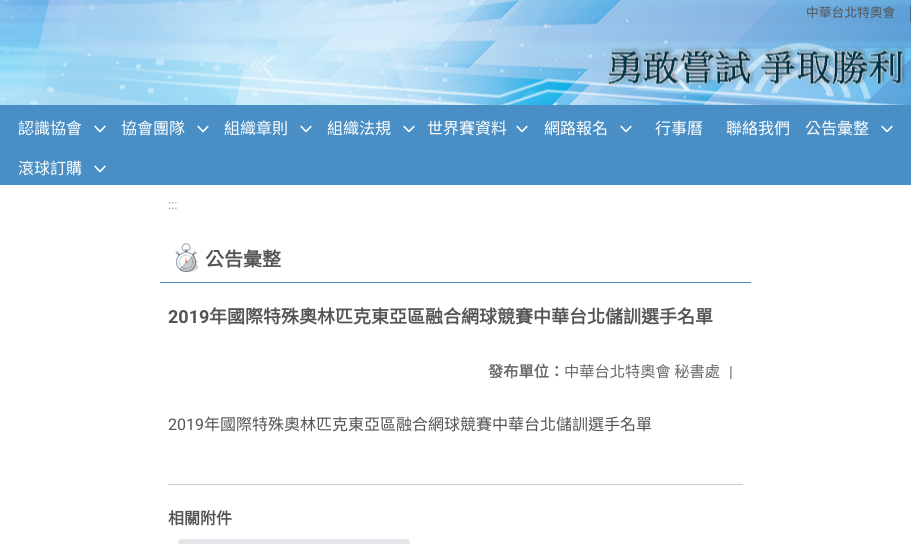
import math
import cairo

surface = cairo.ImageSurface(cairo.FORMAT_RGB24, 911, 544)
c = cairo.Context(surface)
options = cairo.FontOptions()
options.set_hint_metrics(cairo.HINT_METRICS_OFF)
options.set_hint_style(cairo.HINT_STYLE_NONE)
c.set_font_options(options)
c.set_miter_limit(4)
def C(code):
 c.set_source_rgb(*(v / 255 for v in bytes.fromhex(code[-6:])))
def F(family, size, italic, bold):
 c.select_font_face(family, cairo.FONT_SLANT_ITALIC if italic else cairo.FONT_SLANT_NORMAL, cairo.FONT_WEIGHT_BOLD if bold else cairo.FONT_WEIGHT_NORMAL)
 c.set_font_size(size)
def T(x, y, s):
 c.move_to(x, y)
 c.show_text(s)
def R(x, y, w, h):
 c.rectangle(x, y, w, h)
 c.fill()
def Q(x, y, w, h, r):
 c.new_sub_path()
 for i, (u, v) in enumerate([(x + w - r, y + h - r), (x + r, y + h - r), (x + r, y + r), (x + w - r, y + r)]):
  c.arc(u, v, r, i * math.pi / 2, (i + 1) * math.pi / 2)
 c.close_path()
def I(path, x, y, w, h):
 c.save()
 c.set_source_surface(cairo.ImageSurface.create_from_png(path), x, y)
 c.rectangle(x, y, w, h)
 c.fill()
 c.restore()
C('ffffff')
c.paint()
I('1.png',0,0,911,105)
F('Noto Sans CJK TC',12.75,0,0)
C('545454')
T(806,17,'中華台北特奧會')
c.set_source_rgba(0.2,0.2,0.2,0.5)
R(910,5,1,17)
C('498fc5')
R(0,105,911,80)
F('Noto Sans CJK TC',16,0,0)
C('ffffff')
T(18,134,'認識協會')
I('2.png',94,125,12,8)
T(121,134,'協會團隊')
I('2.png',197,125,12,8)
T(224,134,'組織章則')
I('2.png',300,125,12,8)
T(327,134,'組織法規')
I('2.png',403,125,12,8)
T(427,134,'世界賽資料')
I('2.png',516,125,12,8)
T(544,134,'網路報名')
I('2.png',620,125,12,8)
T(655,134,'行事曆')
T(726,134,'聯絡我們')
T(805,134,'公告彙整')
I('2.png',881,125,12,8)
T(18,174,'滾球訂購')
I('2.png',94,165,12,8)
F('Roboto',12.75,0,0)
C('b68d7a')
T(168,209,':::')
I('3.png',175,243,24,29)
C('498ec5')
R(160,282,591,1)
F('Noto Sans CJK TC',19,0,1)
C('545454')
T(205,266,'公告彙整')
F('Roboto',18,0,1)
T(168,323,'2019')
F('Noto Sans CJK TC',18,0,1)
T(209,323,'年國際特殊奧林匹克東亞區融合網球競賽中華台北儲訓選手名單')
F('Noto Sans CJK TC',15.25,0,1)
C('656769')
T(488,377,'發布單位：')
F('Noto Sans CJK TC',15.25,0,0)
T(564,377,'中華台北特奧會 秘書處')
F('Roboto',15.25,0,0)
T(729,377,'|')
F('Roboto',16,0,0)
C('545454')
T(168,430,'2019')
F('Noto Sans CJK TC',16,0,0)
T(204,430,'年國際特殊奧林匹克東亞區融合網球競賽中華台北儲訓選手名單')
C('cccccc')
R(168,484,575,1)
F('Noto Sans CJK TC',16,0,1)
C('545454')
T(168,524,'相關附件')
C('e5e6e9')
Q(178.5,539.5,231,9,3.5)
c.fill_preserve()
c.set_line_width(1)
c.stroke()
I('4.png',193,543,2,1)
surface.write_to_png('o.png')
